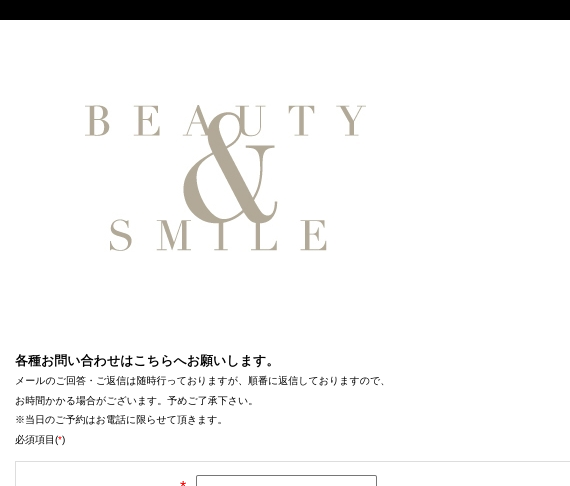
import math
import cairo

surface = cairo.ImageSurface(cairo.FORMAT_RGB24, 570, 486)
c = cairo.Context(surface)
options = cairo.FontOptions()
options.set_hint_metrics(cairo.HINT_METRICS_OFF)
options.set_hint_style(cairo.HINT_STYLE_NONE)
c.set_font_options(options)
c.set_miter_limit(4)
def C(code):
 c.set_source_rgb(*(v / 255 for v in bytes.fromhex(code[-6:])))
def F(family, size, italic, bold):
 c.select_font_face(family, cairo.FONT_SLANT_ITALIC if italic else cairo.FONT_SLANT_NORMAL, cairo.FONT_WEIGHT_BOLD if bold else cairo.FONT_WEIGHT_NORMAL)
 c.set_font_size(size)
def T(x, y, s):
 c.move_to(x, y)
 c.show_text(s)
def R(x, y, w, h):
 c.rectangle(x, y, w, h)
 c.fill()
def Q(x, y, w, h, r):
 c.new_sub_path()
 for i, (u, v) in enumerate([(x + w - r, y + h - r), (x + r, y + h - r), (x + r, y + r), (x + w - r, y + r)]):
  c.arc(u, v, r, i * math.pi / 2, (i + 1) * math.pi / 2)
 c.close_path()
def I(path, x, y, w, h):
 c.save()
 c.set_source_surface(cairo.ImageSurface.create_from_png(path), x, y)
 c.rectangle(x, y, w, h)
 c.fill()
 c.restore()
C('000000')
c.paint()
C('ffffff')
R(0,20,570,466)
I('1.png',85,102,281,150)
F('WenQuanYi Zen Hei',13,0,1)
C('000000')
T(15,365,'各種お問い合わせはこちらへお願いします。')
F('WenQuanYi Zen Hei Medium',10,0,0)
T(15,384,'メールのご回答・ご返信は随時行っておりますが、順番に返信しておりますので、')
T(15,404,'お時間かかる場合がございます。予めご了承下さい。')
T(15,423,'※当日のご予約はお電話に限らせて頂きます。')
T(15,443,'必須項目')
F('Liberation Sans',10,0,0)
T(55,443,'(')
C('cc0000')
T(58,443,'*')
C('000000')
T(62,443,')')
c.rectangle(15.5,461.5,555,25)
C('dddddd')
c.set_line_width(1)
c.stroke()
F('Liberation Sans',16,0,0)
C('cc0000')
T(180,492,'*')
Q(196.5,475.5,180,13,1.5)
C('767676')
c.stroke()
surface.write_to_png('o.png')
